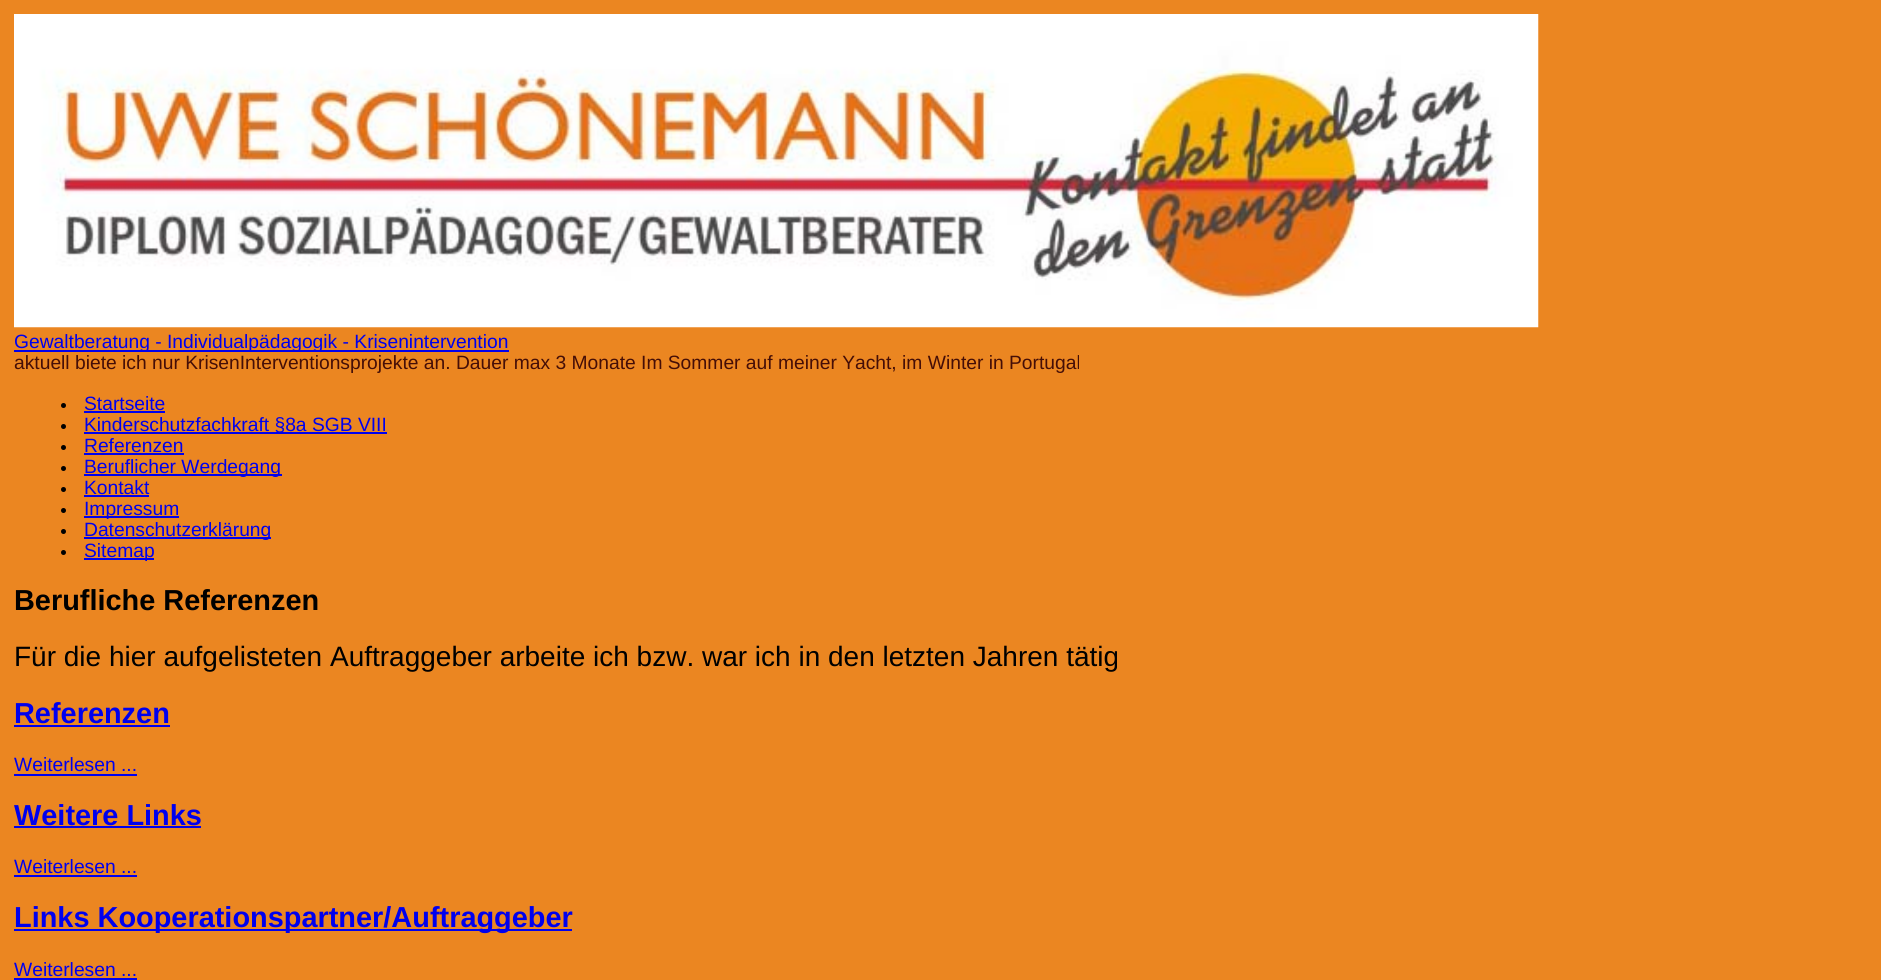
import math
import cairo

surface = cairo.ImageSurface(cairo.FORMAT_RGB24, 1881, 980)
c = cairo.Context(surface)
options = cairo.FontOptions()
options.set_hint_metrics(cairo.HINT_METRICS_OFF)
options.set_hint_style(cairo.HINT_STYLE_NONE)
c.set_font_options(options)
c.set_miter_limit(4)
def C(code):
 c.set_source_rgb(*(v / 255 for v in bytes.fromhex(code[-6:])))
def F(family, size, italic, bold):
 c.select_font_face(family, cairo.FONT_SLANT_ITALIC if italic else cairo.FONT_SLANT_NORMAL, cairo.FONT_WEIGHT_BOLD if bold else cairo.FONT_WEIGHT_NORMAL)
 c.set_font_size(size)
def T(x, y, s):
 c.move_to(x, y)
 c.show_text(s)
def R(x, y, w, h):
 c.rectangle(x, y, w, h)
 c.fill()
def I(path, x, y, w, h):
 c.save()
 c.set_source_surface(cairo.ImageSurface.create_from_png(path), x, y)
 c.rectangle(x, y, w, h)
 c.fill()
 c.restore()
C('eb8621')
c.paint()
I('1.png',14,14,1525,314)
C('0000ee')
R(14,350,495,2)
F('Liberation Sans',19.25,0,0)
T(14,348,'Gewaltberatung - Individualpädagogik - Krisenintervention')
C('450e07')
T(14,369,'aktuell biete ich nur KrisenInterventionsprojekte an. Dauer max 3 Monate Im Sommer auf meiner Yacht, im Winter in Portugal')
C('000000')
c.new_path()
c.arc(63.5,405.5,2.5,0,2 * math.pi)
c.fill()
C('0000ee')
T(84,410,'Startseite')
R(84,411,81,2)
C('000000')
c.new_path()
c.arc(63.5,426.5,2.5,0,2 * math.pi)
c.fill()
C('0000ee')
R(84,432,303,2)
T(84,431,'Kinderschutzfachkraft §8a SGB VIII')
C('000000')
c.new_path()
c.arc(63.5,447.5,2.5,0,2 * math.pi)
c.fill()
C('0000ee')
T(84,452,'Referenzen')
R(84,453,100,2)
C('000000')
c.new_path()
c.arc(63.5,468.5,2.5,0,2 * math.pi)
c.fill()
C('0000ee')
R(84,474,198,2)
T(84,473,'Beruflicher Werdegang')
C('000000')
c.new_path()
c.arc(63.5,489.5,2.5,0,2 * math.pi)
c.fill()
C('0000ee')
T(84,494,'Kontakt')
R(84,495,65,2)
C('000000')
c.new_path()
c.arc(63.5,510.5,2.5,0,2 * math.pi)
c.fill()
C('0000ee')
R(84,516,95,2)
T(84,515,'Impressum')
C('000000')
c.new_path()
c.arc(63.5,531.5,2.5,0,2 * math.pi)
c.fill()
C('0000ee')
R(84,537,187,2)
T(84,536,'Datenschutzerklärung')
C('000000')
c.new_path()
c.arc(63.5,552.5,2.5,0,2 * math.pi)
c.fill()
C('0000ee')
R(84,558,70,2)
T(84,557,'Sitemap')
F('Liberation Sans',28.9,0,1)
C('000000')
T(14,610,'Berufliche Referenzen')
F('Liberation Sans',28,0,0)
T(14,666,'Für die hier aufgelisteten Auftraggeber arbeite ich bzw. war ich in den letzten Jahren tätig')
F('Liberation Sans',28.9,0,1)
C('0000ee')
T(14,723,'Referenzen')
R(14,725,156,2)
F('Liberation Sans',19.25,0,0)
T(14,771,'Weiterlesen ...')
R(14,774,123,2)
F('Liberation Sans',28.9,0,1)
T(14,825,'Weitere Links')
R(14,826,187,2)
F('Liberation Sans',19.25,0,0)
T(14,873,'Weiterlesen ...')
R(14,875,123,2)
R(14,929,558,2)
F('Liberation Sans',28.9,0,1)
T(14,927,'Links Kooperationspartner/Auftraggeber')
F('Liberation Sans',19.25,0,0)
T(14,976,'Weiterlesen ...')
R(14,978,123,2)
surface.write_to_png('o.png')
